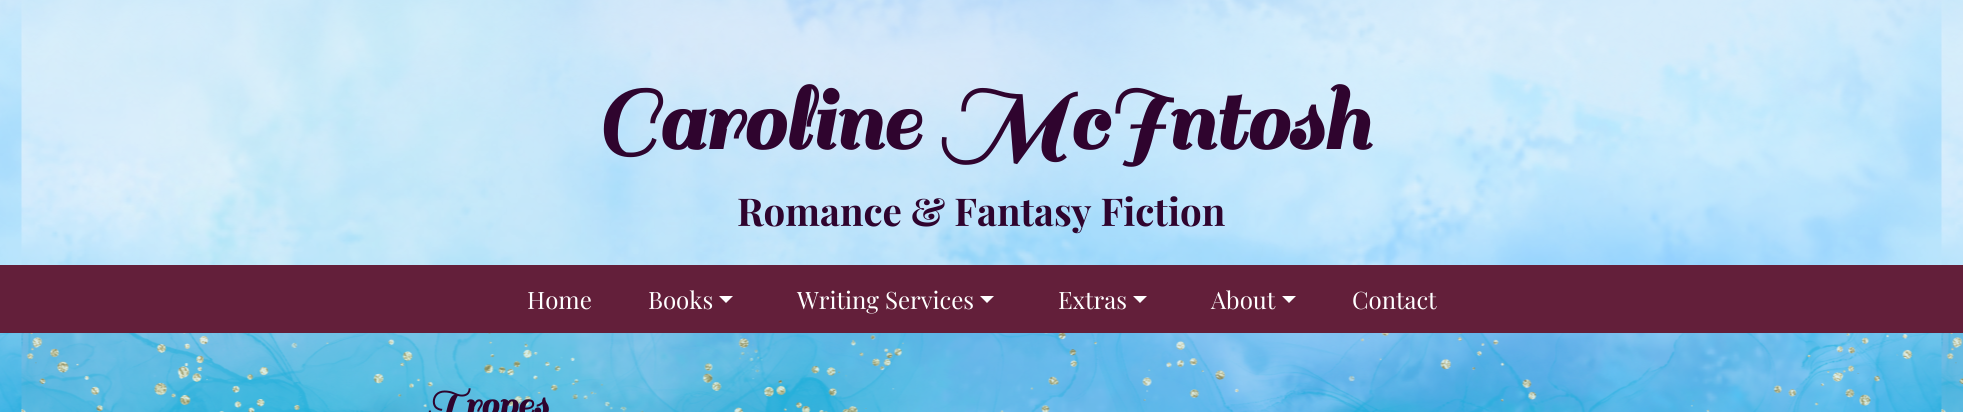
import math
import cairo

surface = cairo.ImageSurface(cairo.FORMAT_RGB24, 1963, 412)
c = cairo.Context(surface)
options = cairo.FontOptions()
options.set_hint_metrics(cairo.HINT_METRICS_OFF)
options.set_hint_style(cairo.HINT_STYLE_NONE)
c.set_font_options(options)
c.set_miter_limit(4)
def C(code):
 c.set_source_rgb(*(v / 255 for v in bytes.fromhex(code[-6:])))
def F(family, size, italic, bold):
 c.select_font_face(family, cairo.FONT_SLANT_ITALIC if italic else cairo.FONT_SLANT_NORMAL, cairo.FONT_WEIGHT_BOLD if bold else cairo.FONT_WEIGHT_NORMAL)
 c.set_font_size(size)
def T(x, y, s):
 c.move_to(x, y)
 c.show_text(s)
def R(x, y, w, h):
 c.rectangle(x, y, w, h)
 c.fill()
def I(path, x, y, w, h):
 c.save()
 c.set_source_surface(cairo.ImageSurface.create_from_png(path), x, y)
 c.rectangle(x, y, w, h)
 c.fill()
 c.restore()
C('ffffff')
c.paint()
I('1.png',0,0,1963,265)
F('Sail',96,0,1)
C('2f042e')
T(595,149,'Caroline McIntosh')
F('Playfair Display',38.4,0,1)
T(737,226,'Romance & Fantasy Fiction')
C('631f3a')
R(0,265,1963,68)
F('Playfair Display',24,0,0)
C('ffffff')
T(527,309,'Home')
T(648,309,'Books')
c.new_path()
c.move_to(719,296)
c.line_to(733,296)
c.line_to(726,303)
c.close_path()
c.fill()
T(797,309,'Writing Services')
c.new_path()
c.move_to(980,296)
c.line_to(994,296)
c.line_to(987,303)
c.close_path()
c.fill()
T(1058,309,'Extras')
c.new_path()
c.move_to(1133,296)
c.line_to(1147,296)
c.line_to(1140,303)
c.close_path()
c.fill()
T(1211,309,'About')
c.new_path()
c.move_to(1282,296)
c.line_to(1296,296)
c.line_to(1289,303)
c.close_path()
c.fill()
T(1352,309,'Contact')
I('2.png',0,333,1963,79)
F('Sail',40,0,1)
C('2f042e')
T(427,416,'Tropes')
surface.write_to_png('o.png')
